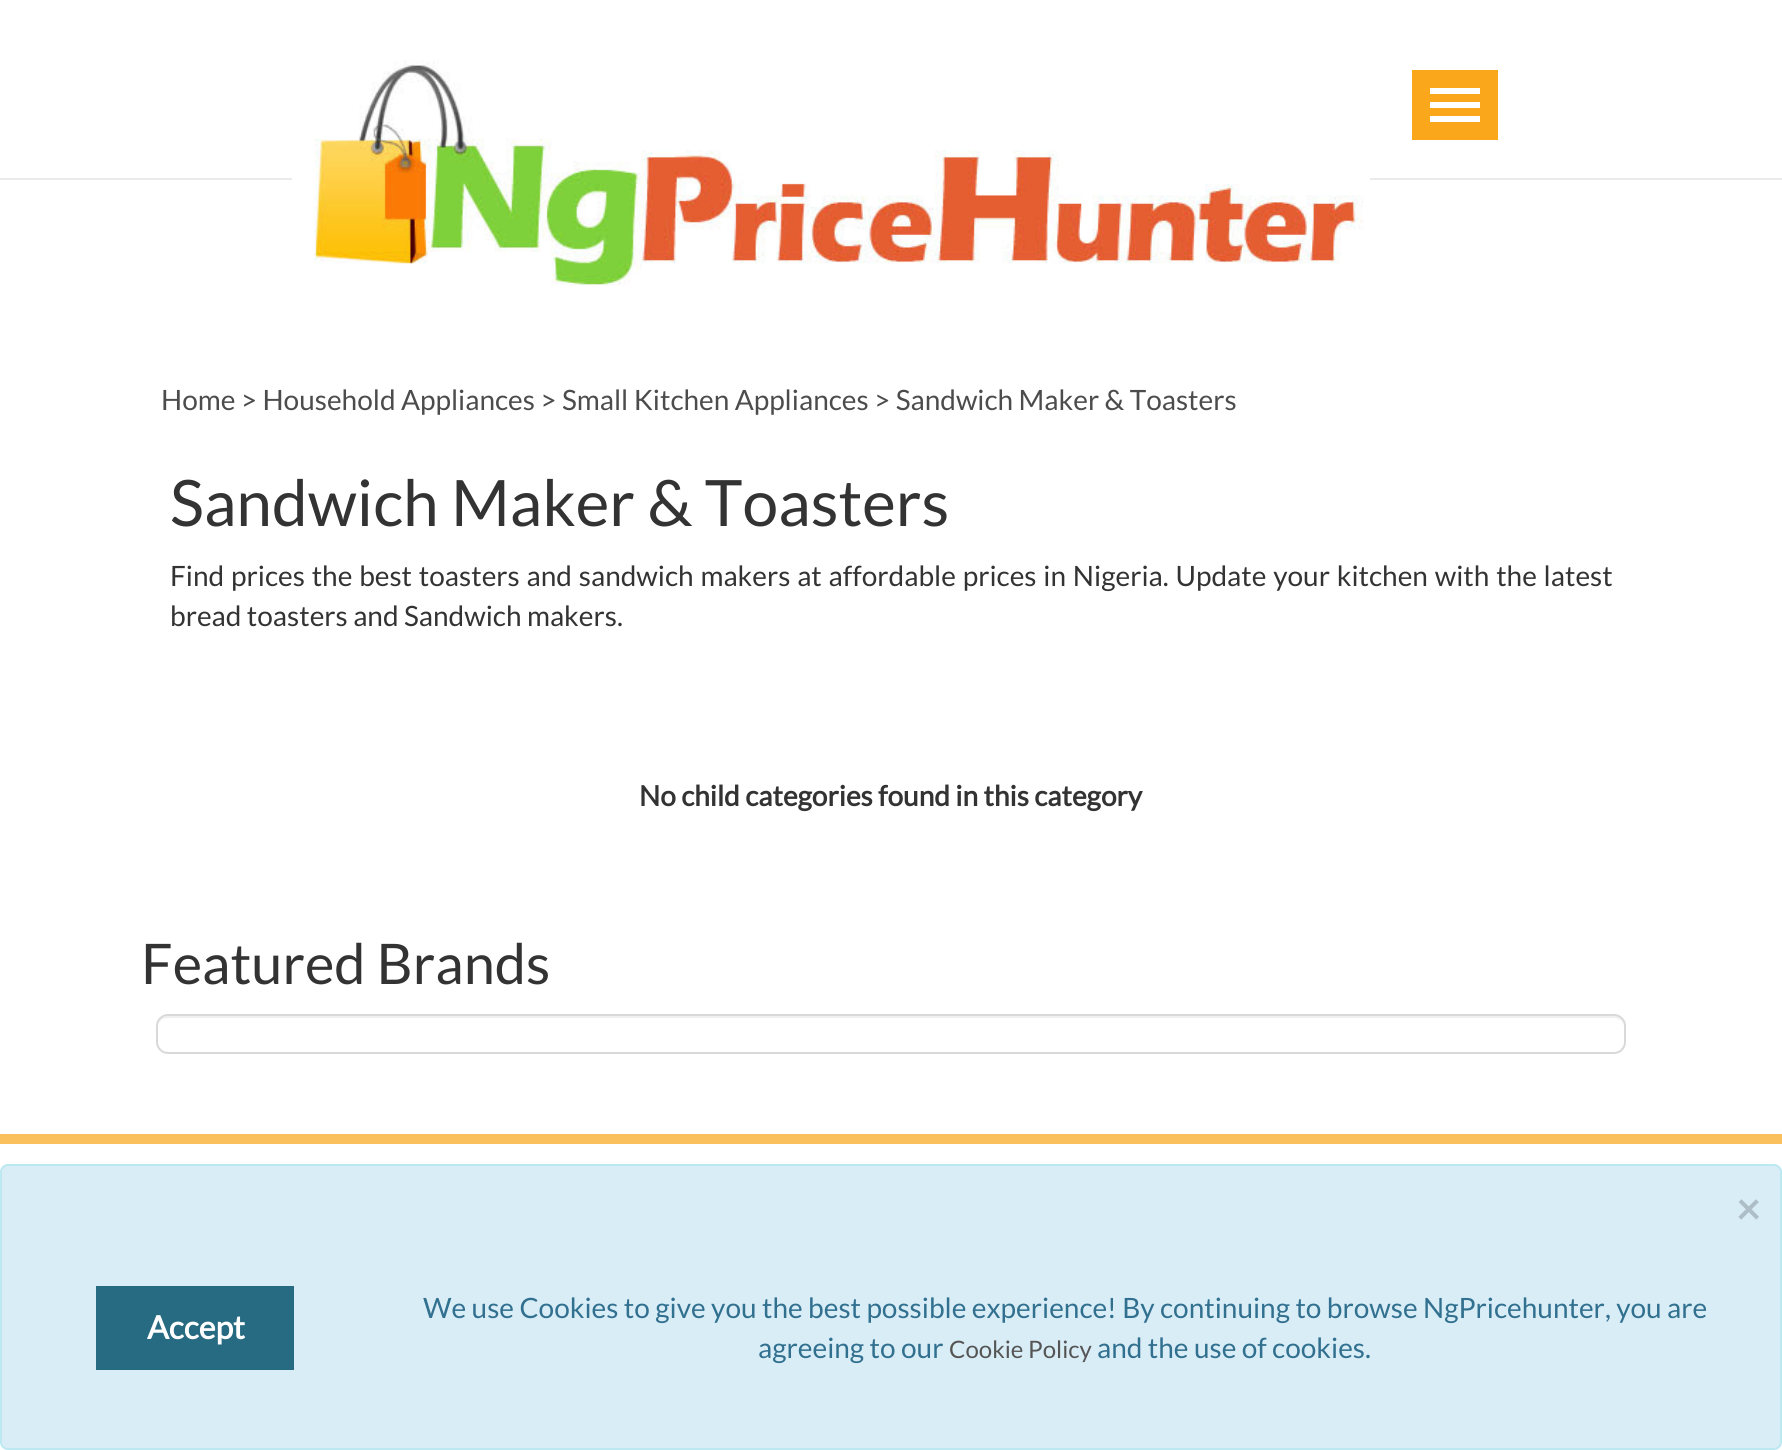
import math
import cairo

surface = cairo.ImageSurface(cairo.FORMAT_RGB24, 1782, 1450)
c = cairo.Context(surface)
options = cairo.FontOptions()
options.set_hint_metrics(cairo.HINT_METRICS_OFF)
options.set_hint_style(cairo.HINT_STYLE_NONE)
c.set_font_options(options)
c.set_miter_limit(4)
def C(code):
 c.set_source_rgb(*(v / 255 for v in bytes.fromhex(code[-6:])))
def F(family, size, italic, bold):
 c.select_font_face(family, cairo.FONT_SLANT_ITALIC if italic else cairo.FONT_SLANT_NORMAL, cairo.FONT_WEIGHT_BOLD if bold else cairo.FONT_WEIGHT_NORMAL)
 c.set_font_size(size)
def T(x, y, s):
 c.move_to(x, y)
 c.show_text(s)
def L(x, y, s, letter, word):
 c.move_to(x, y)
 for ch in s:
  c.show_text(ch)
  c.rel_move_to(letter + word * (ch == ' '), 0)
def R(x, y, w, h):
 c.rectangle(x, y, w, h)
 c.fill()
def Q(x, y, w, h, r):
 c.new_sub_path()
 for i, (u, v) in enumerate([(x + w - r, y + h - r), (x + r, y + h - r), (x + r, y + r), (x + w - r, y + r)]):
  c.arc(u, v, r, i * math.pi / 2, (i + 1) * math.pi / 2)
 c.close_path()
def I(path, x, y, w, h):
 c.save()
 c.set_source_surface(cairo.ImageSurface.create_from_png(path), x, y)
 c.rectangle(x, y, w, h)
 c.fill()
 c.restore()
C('ffffff')
c.paint()
C('ebebeb')
R(0,178,1782,2)
I('1.png',292,60,1078,226)
C('faa71c')
R(1412,70,86,70)
C('ffffff')
R(1430,88,50,6)
R(1430,102,50,6)
R(1430,116,50,6)
F('Lato',28,0,0)
C('4c4c4c')
T(161,410,'Home > Household Appliances > Small Kitchen Appliances > Sandwich Maker & Toasters')
F('Lato',64,0,0)
C('333333')
T(170,526,'Sandwich Maker & Toasters')
F('Lato',28,0,0)
L(170,586,'Find prices the best toasters and sandwich makers at affordable prices in Nigeria. Update your kitchen with the latest',0,1.4)
T(170,626,'bread toasters and Sandwich makers.')
F('Lato',28,0,1)
T(639,806,'No child categories found in this category')
F('Lato',56,0,0)
T(141,984,'Featured Brands')
C('f0f0f0')
c.new_path()
c.move_to(168,1018)
c.line_to(1614,1018)
c.curve_to(1620,1018,1624,1022,1624,1028)
c.curve_to(1624,1022,1621,1016,1614,1016)
c.line_to(168,1016)
c.curve_to(161,1016,158,1022,158,1028)
c.curve_to(158,1022,162,1018,168,1018)
c.close_path()
c.fill()
Q(157,1015,1468,38,11)
C('dad8d9')
c.stroke()
C('fbc05e')
R(0,1134,1782,10)
C('d9edf7')
Q(1,1165,1780,284,7)
c.fill_preserve()
C('bce8f1')
c.stroke()
F('Lato',42,0,1)
C('aebec6')
T(1736,1224,'×')
C('266b82')
R(96,1286,198,84)
F('Lato',32,0,1)
C('ffffff')
T(147,1339,'Accept')
F('Lato',28,0,0)
C('31708f')
T(423,1318,'We use Cookies to give you the best possible experience! By continuing to browse NgPricehunter, you are')
T(758,1358,'agreeing to our')
F('Lato',24,0,0)
C('555555')
T(949,1358,'Cookie Policy')
F('Lato',28,0,0)
C('31708f')
T(1097,1358,'and the use of cookies.')
surface.write_to_png('o.png')
